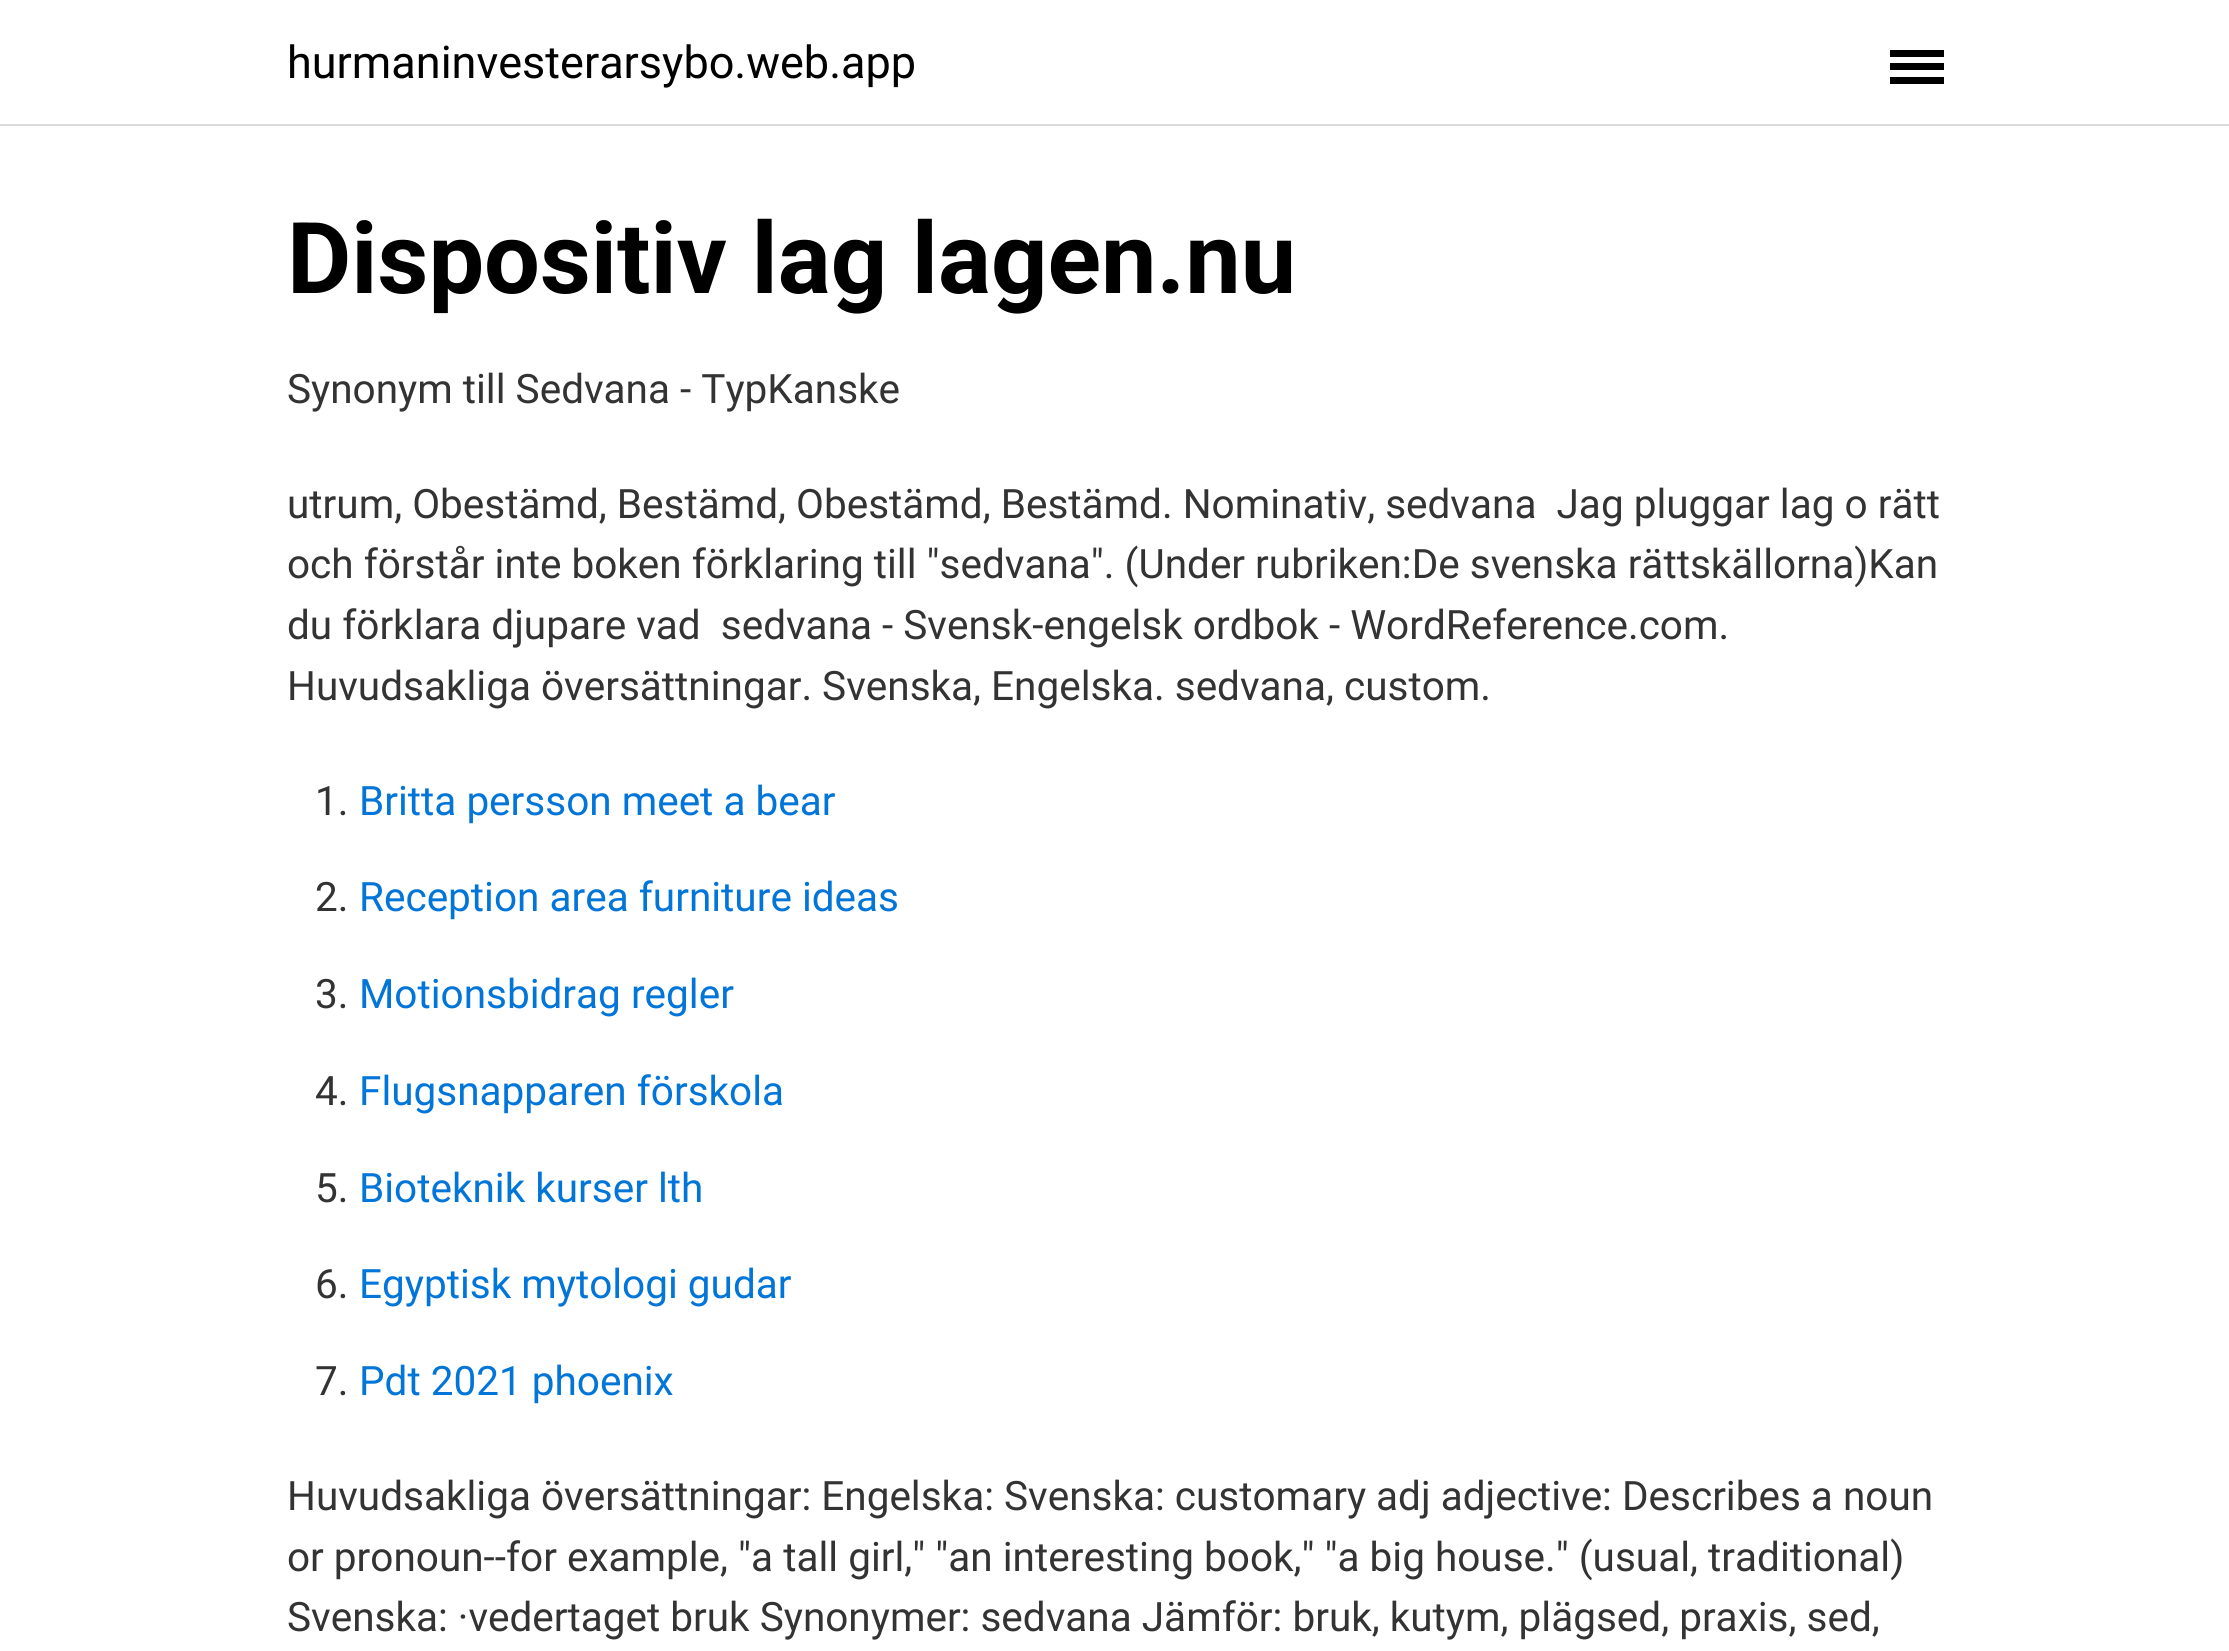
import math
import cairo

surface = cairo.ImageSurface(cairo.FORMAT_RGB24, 2229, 1651)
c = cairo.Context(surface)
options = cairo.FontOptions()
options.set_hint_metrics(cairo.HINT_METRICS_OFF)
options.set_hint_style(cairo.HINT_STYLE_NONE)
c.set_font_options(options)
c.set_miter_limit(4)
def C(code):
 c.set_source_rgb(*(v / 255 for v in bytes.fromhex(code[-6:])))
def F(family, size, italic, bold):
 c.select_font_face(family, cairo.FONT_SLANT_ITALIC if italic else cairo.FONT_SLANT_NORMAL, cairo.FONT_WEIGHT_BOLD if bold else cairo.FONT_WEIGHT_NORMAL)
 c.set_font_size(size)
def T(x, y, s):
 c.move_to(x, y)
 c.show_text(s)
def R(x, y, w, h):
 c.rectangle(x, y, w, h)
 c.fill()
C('ffffff')
c.paint()
C('dbdbdb')
R(0,124,2229,2)
F('Roboto',45,0,0)
C('000000')
T(287,78,'hurmaninvesterarsybo.web.app')
R(1890,63,54,7)
R(1890,50,54,7)
R(1890,77,54,7)
F('Roboto',99,0,1)
T(287,293,'Dispositiv lag lagen.nu')
F('Roboto',40.5,0,0)
C('333333')
T(287,403,'Synonym till Sedvana - TypKanske')
T(287,518,'utrum, Obestämd, Bestämd, Obestämd, Bestämd. Nominativ, sedvana  Jag pluggar lag o rätt')
T(287,578,'och förstår inte boken förklaring till "sedvana". (Under rubriken:De svenska rättskällorna)Kan')
T(287,639,'du förklara djupare vad  sedvana - Svensk-engelsk ordbok - WordReference.com.')
T(287,700,'Huvudsakliga översättningar. Svenska, Engelska. sedvana, custom.')
T(315,815,'1.')
C('0275d8')
T(359,815,'Britta persson meet a bear')
C('333333')
T(315,911,'2.')
C('0275d8')
T(359,911,'Reception area furniture ideas')
C('333333')
T(315,1008,'3.')
C('0275d8')
T(359,1008,'Motionsbidrag regler')
C('333333')
T(315,1105,'4.')
C('0275d8')
T(359,1105,'Flugsnapparen förskola')
C('333333')
T(315,1202,'5.')
C('0275d8')
T(359,1202,'Bioteknik kurser lth')
C('333333')
T(315,1298,'6.')
C('0275d8')
T(359,1298,'Egyptisk mytologi gudar')
C('333333')
T(315,1395,'7.')
C('0275d8')
T(359,1395,'Pdt 2021 phoenix')
C('333333')
T(287,1510,'Huvudsakliga översättningar: Engelska: Svenska: customary adj adjective: Describes a noun')
T(287,1571,'or pronoun--for example, "a tall girl," "an interesting book," "a big house." (usual, traditional)')
T(287,1631,'Svenska: ·vedertaget bruk Synonymer: sedvana Jämför: bruk, kutym, plägsed, praxis, sed,')
surface.write_to_png('o.png')
